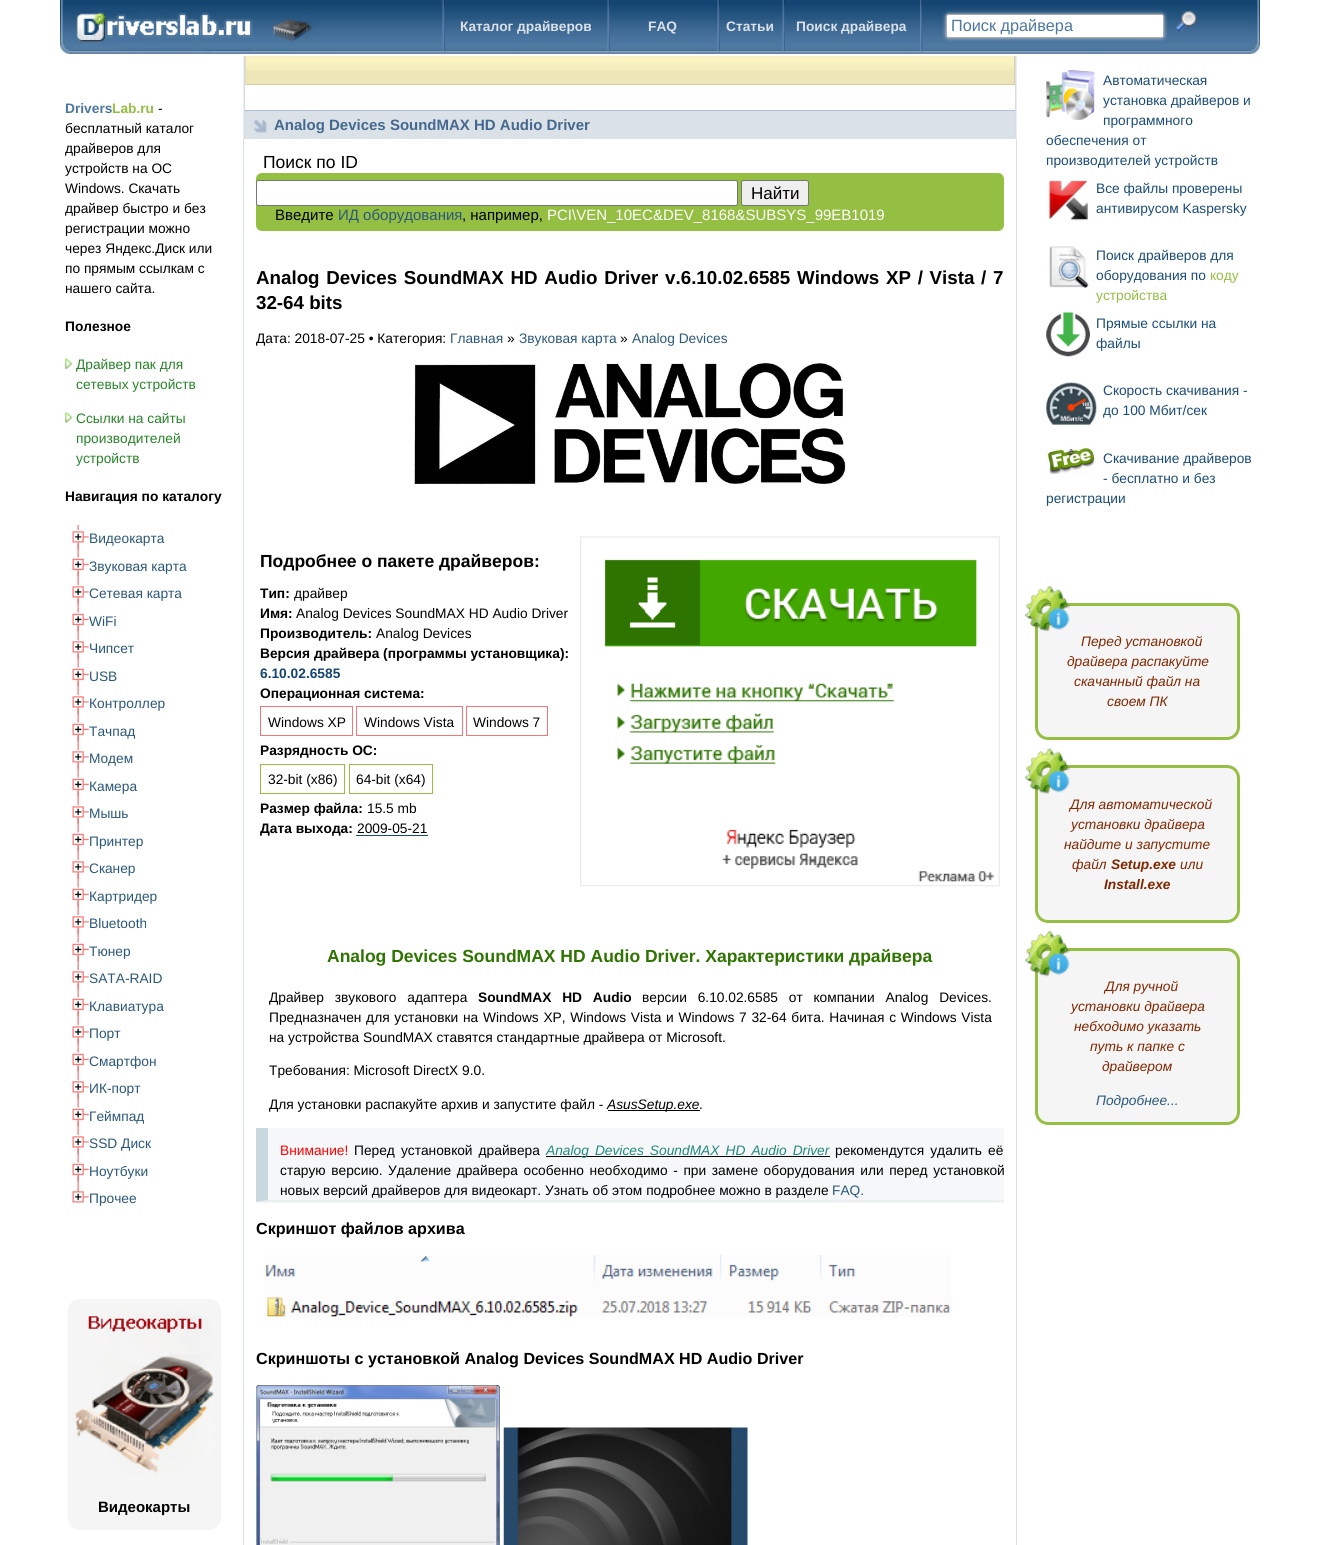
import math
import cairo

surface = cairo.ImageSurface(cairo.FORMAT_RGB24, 1320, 1545)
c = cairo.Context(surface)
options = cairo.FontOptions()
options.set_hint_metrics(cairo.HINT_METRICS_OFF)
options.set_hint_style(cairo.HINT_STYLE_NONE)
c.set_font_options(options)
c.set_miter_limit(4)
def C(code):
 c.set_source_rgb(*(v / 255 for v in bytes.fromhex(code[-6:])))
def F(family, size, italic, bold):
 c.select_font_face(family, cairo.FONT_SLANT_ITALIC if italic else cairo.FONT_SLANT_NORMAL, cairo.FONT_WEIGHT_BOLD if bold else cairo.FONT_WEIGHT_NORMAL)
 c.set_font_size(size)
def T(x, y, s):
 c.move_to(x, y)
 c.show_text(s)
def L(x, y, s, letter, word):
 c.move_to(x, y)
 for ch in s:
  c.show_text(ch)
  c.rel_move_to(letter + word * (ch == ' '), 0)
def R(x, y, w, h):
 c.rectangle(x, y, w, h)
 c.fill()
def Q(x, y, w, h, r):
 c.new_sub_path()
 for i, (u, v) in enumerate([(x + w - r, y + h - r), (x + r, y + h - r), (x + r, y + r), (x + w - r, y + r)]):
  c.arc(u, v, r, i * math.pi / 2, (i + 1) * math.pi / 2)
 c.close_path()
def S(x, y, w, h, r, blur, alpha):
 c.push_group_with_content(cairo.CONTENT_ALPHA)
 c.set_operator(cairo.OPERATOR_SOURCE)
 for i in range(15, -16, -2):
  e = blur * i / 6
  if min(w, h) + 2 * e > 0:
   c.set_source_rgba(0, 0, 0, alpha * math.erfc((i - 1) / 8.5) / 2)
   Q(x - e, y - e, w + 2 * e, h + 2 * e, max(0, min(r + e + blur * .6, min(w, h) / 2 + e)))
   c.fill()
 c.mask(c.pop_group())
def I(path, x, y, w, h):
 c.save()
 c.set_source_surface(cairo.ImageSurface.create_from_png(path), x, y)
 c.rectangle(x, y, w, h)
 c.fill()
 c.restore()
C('ffffff')
c.paint()
I('1.png',60,0,1200,54)
I('2.png',442,0,3,52)
F('Liberation Sans',13.75,0,1)
C('dae1e8')
T(460,31,'Каталог драйверов')
I('2.png',607,0,3,52)
T(648,31,'FAQ')
I('3.png',717,0,3,52)
T(726,31,'Статьи')
I('2.png',782,0,3,52)
T(796,31,'Поиск драйвера')
I('4.png',920,0,3,52)
C('cccccc')
S(946,14,218,24,2.5,2,1)
C('ffffff')
Q(946.5,14.5,217,23,2)
c.fill_preserve()
C('aaaaaa')
c.set_line_width(1)
c.stroke()
F('Liberation Sans',16.25,0,0)
C('4c77a1')
T(951,31,'Поиск драйвера')
I('5.png',1176,11,21,21)
F('Liberation Sans',13.75,0,1)
T(65,113,'Drivers')
C('94bf42')
T(112,113,'Lab.ru')
F('Liberation Sans',13.75,0,0)
C('000000')
T(158,113,'-')
T(65,133,'бесплатный каталог')
T(65,153,'драйверов для')
T(65,173,'устройств на ОС')
T(65,193,'Windows. Скачать')
T(65,213,'драйвер быстро и без')
T(65,233,'регистрации можно')
T(65,253,'через Яндекс.Диск или')
T(65,273,'по прямым ссылкам с')
T(65,293,'нашего сайта.')
F('Liberation Sans',13.75,0,1)
T(65,331,'Полезное')
I('6.png',64,357,9,12)
F('Liberation Sans',13.75,0,0)
C('268427')
T(76,369,'Драйвер пак для')
T(76,389,'сетевых устройств')
I('7.png',64,411,9,12)
T(76,423,'Ссылки на сайты')
T(76,443,'производителей')
T(76,463,'устройств')
F('Liberation Sans',13.75,0,1)
C('000000')
T(65,501,'Навигация по каталогу')
I('8.png',77,525,2,28)
I('9.png',72,531,17,18)
F('Liberation Sans',13.75,0,0)
C('2b587a')
T(89,543,'Видеокарта')
I('10.png',77,552,2,28)
I('11.png',72,558,17,19)
T(89,571,'Звуковая карта')
I('8.png',77,580,2,28)
I('12.png',72,586,17,18)
T(89,598,'Сетевая карта')
I('10.png',77,607,2,28)
I('11.png',72,613,17,19)
T(89,626,'WiFi')
I('8.png',77,635,2,28)
I('9.png',72,641,17,18)
T(89,653,'Чипсет')
I('10.png',77,662,2,28)
I('11.png',72,668,17,19)
T(89,681,'USB')
I('8.png',77,690,2,28)
I('9.png',72,696,17,18)
T(89,708,'Контроллер')
I('10.png',77,717,2,28)
I('11.png',72,723,17,19)
T(89,736,'Тачпад')
I('8.png',77,745,2,28)
I('9.png',72,751,17,18)
T(89,763,'Модем')
I('10.png',77,772,2,28)
I('13.png',72,778,17,19)
T(89,791,'Камера')
I('8.png',77,800,2,28)
I('9.png',72,806,17,18)
T(89,818,'Мышь')
I('10.png',77,827,2,28)
I('11.png',72,833,17,19)
T(89,846,'Принтер')
I('8.png',77,855,2,28)
I('9.png',72,861,17,18)
T(89,873,'Сканер')
I('10.png',77,882,2,28)
I('11.png',72,888,17,19)
T(89,901,'Картридер')
I('8.png',77,910,2,28)
I('9.png',72,916,17,18)
T(89,928,'Bluetooth')
I('10.png',77,937,2,28)
I('11.png',72,943,17,19)
T(89,956,'Тюнер')
I('8.png',77,965,2,28)
I('9.png',72,971,17,18)
T(89,983,'SATA-RAID')
I('10.png',77,992,2,28)
I('11.png',72,998,17,19)
T(89,1011,'Клавиатура')
I('8.png',77,1020,2,28)
I('14.png',72,1026,17,18)
T(89,1038,'Порт')
I('10.png',77,1047,2,28)
I('11.png',72,1053,17,19)
T(89,1066,'Смартфон')
I('8.png',77,1075,2,28)
I('9.png',72,1081,17,18)
T(89,1093,'ИК-порт')
I('10.png',77,1102,2,28)
I('11.png',72,1108,17,19)
T(89,1121,'Геймпад')
I('8.png',77,1130,2,28)
I('9.png',72,1136,17,18)
T(89,1148,'SSD Диск')
I('10.png',77,1157,2,28)
I('11.png',72,1163,17,19)
T(89,1176,'Ноутбуки')
I('15.png',72,1185,17,18)
T(89,1203,'Прочее')
I('16.png',67,1299,154,231)
F('Liberation Sans',15,0,1)
C('000000')
T(98,1512,'Видеокарты')
C('eaeef3')
R(1016,56,1,83)
R(243,56,1,83)
C('d5dde6')
R(1015,56,1,83)
R(244,56,1,83)
C('eee5b8')
R(246,56,768,28)
I('17.png',246,56,768,15)
C('dcd4a4')
R(1014,56,1,29)
C('d7cf9e')
R(245,84,770,1)
C('e4ddb4')
R(245,56,1,29)
C('dae2e8')
R(245,111,770,28)
I('18.png',253,119,14,14)
C('b1bdd6')
R(245,110,770,1)
C('45688e')
T(274,130,'Analog Devices SoundMAX HD Audio Driver')
C('dae1e8')
R(1016,139,1,1406)
R(243,139,1,1406)
F('Liberation Sans',17.5,0,0)
C('000000')
T(263,168,'Поиск по ID')
C('94bf42')
Q(256,173,748,58,6)
c.fill()
C('ffffff')
Q(256.5,180.5,481,25,2)
c.fill_preserve()
C('767676')
c.stroke()
C('efefef')
Q(741.5,180.5,67,25,2)
c.fill_preserve()
C('767676')
c.stroke()
F('Liberation Sans',17,0,0)
C('000000')
T(751,199,'Найти')
F('Liberation Sans',15,0,0)
T(275,220,'Введите')
C('2b587a')
T(338,220,'ИД оборудования')
C('000000')
T(462,220,', например,')
C('ffffff')
T(547,220,'PCI\\VEN_10EC&DEV_8168&SUBSYS_99EB1019')
F('Liberation Sans',18.75,0,1)
C('000000')
L(256,284,'Analog Devices SoundMAX HD Audio Driver v.6.10.02.6585 Windows XP / Vista / 7',0,1.5)
T(256,309,'32-64 bits')
F('Liberation Sans',13.75,0,0)
T(256,343,'Дата: 2018-07-25 • Категория:')
C('2b587a')
T(450,343,'Главная')
C('000000')
T(507,343,'»')
C('2b587a')
T(519,343,'Звуковая карта')
C('000000')
T(620,343,'»')
C('2b587a')
T(632,343,'Analog Devices')
I('19.png',411,362,435,123)
F('Liberation Sans',17.5,0,1)
C('000000')
T(260,567,'Подробнее о пакете драйверов:')
F('Liberation Sans',13.75,0,1)
T(260,598,'Тип:')
F('Liberation Sans',13.75,0,0)
T(294,598,'драйвер')
F('Liberation Sans',13.75,0,1)
T(260,618,'Имя:')
F('Liberation Sans',13.75,0,0)
T(296,618,'Analog Devices SoundMAX HD Audio Driver')
F('Liberation Sans',13.75,0,1)
T(260,638,'Производитель:')
F('Liberation Sans',13.75,0,0)
T(376,638,'Analog Devices')
F('Liberation Sans',13.75,0,1)
T(260,658,'Версия драйвера (программы установщика):')
C('154573')
T(260,678,'6.10.02.6585')
C('000000')
T(260,698,'Операционная система:')
c.rectangle(260.5,706.5,92,29)
C('f57676')
c.stroke()
F('Liberation Sans',13.75,0,0)
C('000000')
T(268,727,'Windows XP')
c.rectangle(356.5,706.5,106,29)
C('f57676')
c.stroke()
C('000000')
T(364,727,'Windows Vista')
c.rectangle(466.5,706.5,81,29)
C('f57676')
c.stroke()
C('000000')
T(473,727,'Windows 7')
F('Liberation Sans',13.75,0,1)
T(260,755,'Разрядность ОС:')
c.rectangle(260.5,764.5,84,29)
C('94bf42')
c.stroke()
F('Liberation Sans',13.75,0,0)
C('000000')
T(268,784,'32-bit (x86)')
c.rectangle(349.5,764.5,83,29)
C('94bf42')
c.stroke()
C('000000')
T(356,784,'64-bit (x64)')
F('Liberation Sans',13.75,0,1)
T(260,813,'Размер файла:')
F('Liberation Sans',13.75,0,0)
T(367,813,'15.5 mb')
F('Liberation Sans',13.75,0,1)
T(260,833,'Дата выхода:')
F('Liberation Sans',13.75,0,0)
T(357,833,'2009-05-21')
C('184974')
R(356,835,72,1)
I('20.png',580,536,420,351)
F('Liberation Sans',17.5,0,1)
C('2e7400')
T(327,962,'Analog Devices SoundMAX HD Audio Driver. Характеристики драйвера')
F('Liberation Sans',13.75,0,0)
C('000000')
L(269,1002,'Драйвер звукового адаптера',0,7)
F('Liberation Sans',13.75,0,1)
L(478,1002,'SoundMAX HD Audio',0,7)
F('Liberation Sans',13.75,0,0)
L(642,1002,'версии 6.10.02.6585 от компании Analog Devices.',0,7)
L(269,1022,'Предназначен для установки на Windows XP, Windows Vista и Windows 7 32-64 бита. Начиная с Windows Vista',0,.9)
T(269,1042,'на устройства SoundMAX ставятся стандартные драйвера от Microsoft.')
T(269,1075,'Требования: Microsoft DirectX 9.0.')
T(269,1109,'Для установки распакуйте архив и запустите файл -')
R(608,1110,92,1)
F('Liberation Sans',13.75,1,0)
T(607,1109,'AsusSetup.exe')
F('Liberation Sans',13.75,0,0)
T(699,1109,'.')
C('f5f7f8')
R(256,1128,748,75)
C('ebeff2')
c.new_path()
c.move_to(1004,1202)
c.line_to(256,1202)
c.line_to(268,1200)
c.line_to(1004,1200)
c.close_path()
c.fill()
C('c9d8df')
c.new_path()
c.move_to(256,1202)
c.line_to(256,1128)
c.line_to(268,1128)
c.line_to(268,1200)
c.close_path()
c.fill()
C('ff0000')
T(280,1155,'Внимание!')
C('000000')
L(354,1155,'Перед установкой драйвера',0,2.25)
R(546,1156,284,1)
F('Liberation Sans',13.75,1,0)
C('21897c')
L(546,1155,'Analog Devices SoundMAX HD Audio Driver',0,2.25)
F('Liberation Sans',13.75,0,0)
C('000000')
L(835,1155,'рекомендутся удалить её',0,2.25)
L(280,1175,'старую версию. Удаление драйвера особенно необходимо - при замене оборудования или перед установкой',0,1.75)
T(280,1195,'новых версий драйверов для видеокарт. Узнать об этом подробнее можно в разделе')
C('2b587a')
T(832,1195,'FAQ.')
F('Liberation Sans',16.1,0,1)
C('000000')
T(256,1234,'Скриншот файлов архива')
I('21.png',264,1255,687,62)
T(256,1364,'Скриншоты с установкой Analog Devices SoundMAX HD Audio Driver')
I('22.png',256,1385,244,160)
I('23.png',503,1427,245,118)
I('24.png',1046,70,50,50)
F('Liberation Sans',13.75,0,0)
C('1b4c77')
T(1103,85,'Автоматическая')
T(1103,105,'установка драйверов и')
T(1103,125,'программного')
T(1046,145,'обеспечения от')
T(1046,165,'производителей устройств')
I('25.png',1048,180,40,41)
T(1096,193,'Все файлы проверены')
T(1096,213,'антивирусом Kaspersky')
I('26.png',1049,246,40,42)
T(1096,260,'Поиск драйверов для')
T(1096,280,'оборудования по')
C('94bf42')
T(1210,280,'коду')
T(1096,300,'устройства')
I('27.png',1046,312,44,45)
C('1b4c77')
T(1096,328,'Прямые ссылки на')
T(1096,348,'файлы')
I('28.png',1046,382,51,43)
T(1103,395,'Скорость скачивания -')
T(1103,415,'до 100 Мбит/сек')
I('29.png',1046,447,49,27)
T(1103,463,'Скачивание драйверов')
T(1103,483,'- бесплатно и без')
T(1046,503,'регистрации')
C('f5f5f5')
Q(1036.5,604.5,202,134,11.5)
c.fill_preserve()
C('94bf42')
c.set_line_width(3)
c.stroke()
I('30.png',1025,586,45,46)
F('Liberation Sans',13.75,1,0)
C('802600')
T(1081,646,'Перед установкой')
T(1067,666,'драйвера распакуйте')
T(1074,686,'скачанный файл на')
T(1107,706,'своем ПК')
C('f5f5f5')
Q(1036.5,766.5,202,155,11.5)
c.fill_preserve()
C('94bf42')
c.stroke()
I('31.png',1025,748,45,46)
C('802600')
T(1070,809,'Для автоматической')
T(1071,829,'установки драйвера')
T(1064,849,'найдите и запустите')
T(1072,869,'файл')
F('Liberation Sans',13.75,1,1)
T(1111,869,'Setup.exe')
F('Liberation Sans',13.75,1,0)
T(1180,869,'или')
F('Liberation Sans',13.75,1,1)
T(1104,889,'Install.exe')
C('f5f5f5')
Q(1036.5,949.5,202,174,11.5)
c.fill_preserve()
C('94bf42')
c.stroke()
I('32.png',1025,931,45,46)
F('Liberation Sans',13.75,1,0)
C('802600')
T(1105,991,'Для ручной')
T(1071,1011,'установки драйвера')
T(1074,1031,'небходимо указать')
T(1090,1051,'путь к папке с')
T(1102,1071,'драйвером')
C('2b587a')
T(1096,1105,'Подробнее...')
surface.write_to_png('o.png')
